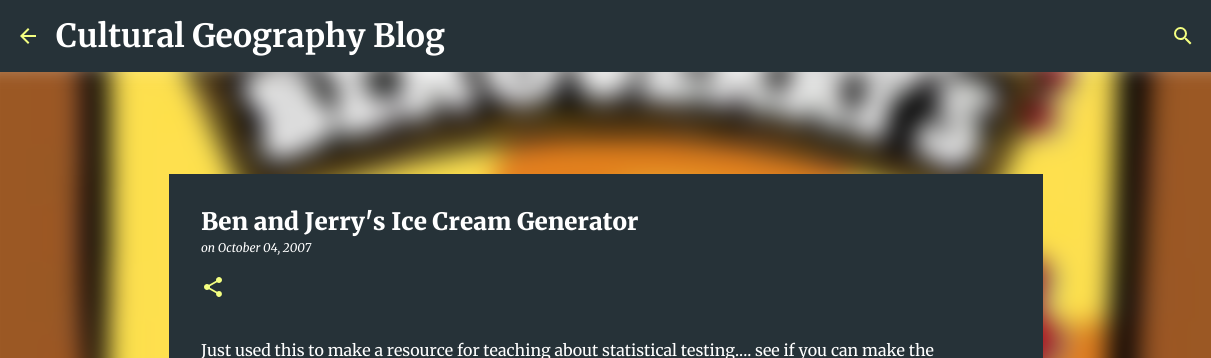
import math
import cairo

surface = cairo.ImageSurface(cairo.FORMAT_RGB24, 1211, 358)
c = cairo.Context(surface)
options = cairo.FontOptions()
options.set_hint_metrics(cairo.HINT_METRICS_OFF)
options.set_hint_style(cairo.HINT_STYLE_NONE)
c.set_font_options(options)
c.set_miter_limit(4)
def C(code):
 c.set_source_rgb(*(v / 255 for v in bytes.fromhex(code[-6:])))
def F(family, size, italic, bold):
 c.select_font_face(family, cairo.FONT_SLANT_ITALIC if italic else cairo.FONT_SLANT_NORMAL, cairo.FONT_WEIGHT_BOLD if bold else cairo.FONT_WEIGHT_NORMAL)
 c.set_font_size(size)
def T(x, y, s):
 c.move_to(x, y)
 c.show_text(s)
def R(x, y, w, h):
 c.rectangle(x, y, w, h)
 c.fill()
def I(path, x, y, w, h):
 c.save()
 c.set_source_surface(cairo.ImageSurface.create_from_png(path), x, y)
 c.rectangle(x, y, w, h)
 c.fill()
 c.restore()
C('ffffff')
c.paint()
C('263238')
R(0,0,1211,72)
I('1.png',20,28,16,16)
F('Merriweather',32,0,1)
C('ffffff')
T(56,47,'Cultural Geography Blog')
I('2.png',1174,27,18,18)
I('4.png',0,72,1211,286)
C('263238')
R(169,174,874,184)
F('Merriweather Black',24,0,0)
C('ffffff')
T(201,230,'Ben and Jerry\'s Ice Cream Generator')
F('Merriweather',12,1,0)
T(201,252,'on October 04, 2007')
I('3.png',204,277,18,20)
F('Merriweather',16,0,0)
T(201,356,'Just used this to make a resource for teaching about statistical testing.... see if you can make the')
surface.write_to_png('o.png')
